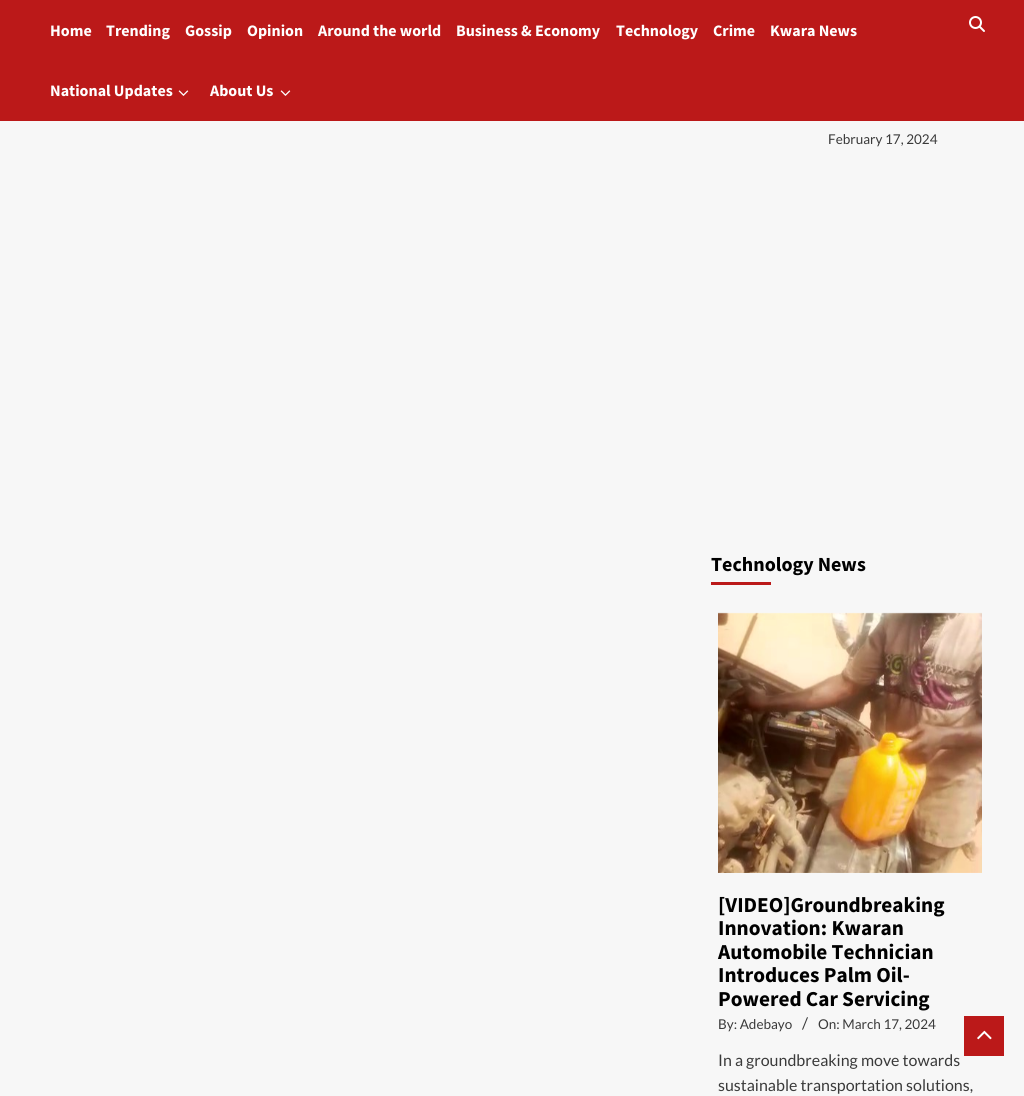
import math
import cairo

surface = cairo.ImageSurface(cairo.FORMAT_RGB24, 1024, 1096)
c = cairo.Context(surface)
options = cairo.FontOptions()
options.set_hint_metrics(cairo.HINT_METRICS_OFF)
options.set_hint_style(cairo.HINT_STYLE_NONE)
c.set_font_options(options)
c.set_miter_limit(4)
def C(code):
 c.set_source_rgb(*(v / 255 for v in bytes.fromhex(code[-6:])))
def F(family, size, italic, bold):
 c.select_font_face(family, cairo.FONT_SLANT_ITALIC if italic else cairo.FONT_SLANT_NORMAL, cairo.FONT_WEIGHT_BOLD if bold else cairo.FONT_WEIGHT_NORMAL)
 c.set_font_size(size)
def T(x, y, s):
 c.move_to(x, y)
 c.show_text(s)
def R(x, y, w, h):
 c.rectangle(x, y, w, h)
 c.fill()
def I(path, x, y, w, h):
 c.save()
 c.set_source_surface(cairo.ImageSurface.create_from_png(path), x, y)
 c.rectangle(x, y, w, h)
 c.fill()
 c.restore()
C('f7f7f7')
c.paint()
C('bb1919')
R(0,0,1024,121)
F('Source Sans Pro',16,0,1)
C('ffffff')
T(50,36,'Home')
T(106,36,'Trending')
T(185,36,'Gossip')
T(247,36,'Opinion')
T(318,36,'Around the world')
T(456,36,'Business & Economy')
T(616,36,'Technology')
T(713,36,'Crime')
T(770,36,'Kwara News')
T(50,96,'National Updates')
I('1.png',178,90,11,6)
T(210,96,'About Us')
I('1.png',280,90,11,6)
I('2.png',969,16,16,16)
F('Lato',13.5,0,0)
C('3a3a3a')
T(828,144,'February 17, 2024')
F('Source Sans Pro',20,0,1)
C('000000')
T(711,571,'Technology News')
C('bb1919')
R(711,582,60,3)
I('3.png',718,612,264,261)
F('Source Sans Pro',21.25,0,1)
C('000000')
T(718,912,'[VIDEO]Groundbreaking')
T(718,935,'Innovation: Kwaran')
T(718,959,'Automobile Technician')
T(718,982,'Introduces Palm Oil-')
T(718,1006,'Powered Car Servicing')
F('Lato',13.5,0,0)
C('3a3a3a')
T(718,1029,'By: Adebayo')
F('Lato',16,0,0)
T(802,1029,'/')
F('Lato',13.5,0,0)
T(818,1029,'On: March 17, 2024')
F('Lato',16,0,0)
T(718,1066,'In a groundbreaking move towards')
T(718,1091,'sustainable transportation solutions,')
C('bb1919')
R(964,1016,40,40)
I('4.png',977,1030,15,10)
surface.write_to_png('o.png')
